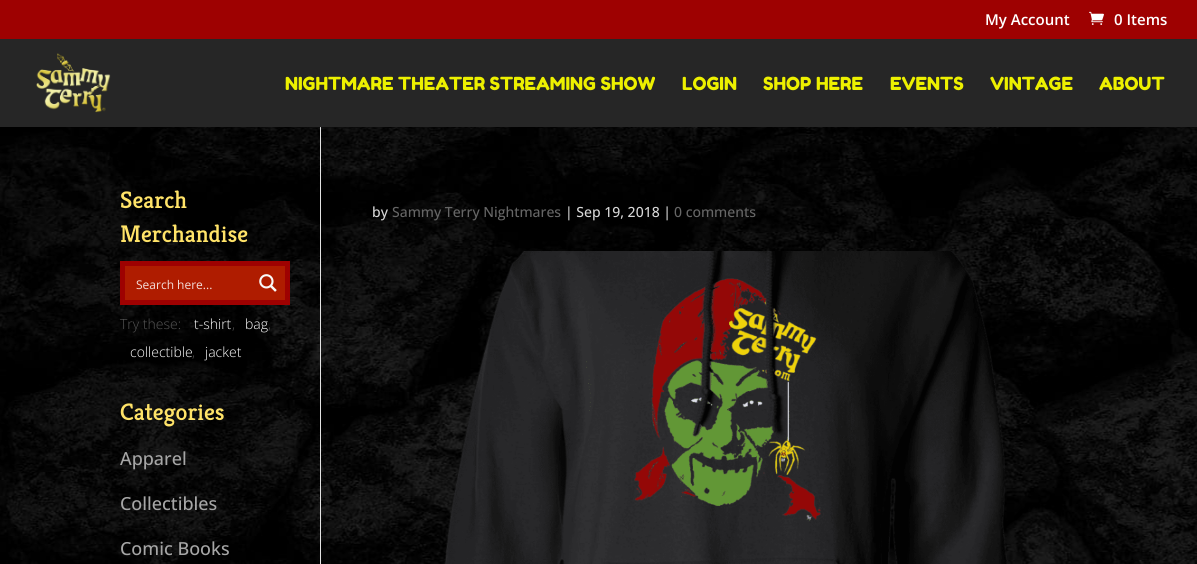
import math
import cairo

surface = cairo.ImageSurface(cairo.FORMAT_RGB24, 1197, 564)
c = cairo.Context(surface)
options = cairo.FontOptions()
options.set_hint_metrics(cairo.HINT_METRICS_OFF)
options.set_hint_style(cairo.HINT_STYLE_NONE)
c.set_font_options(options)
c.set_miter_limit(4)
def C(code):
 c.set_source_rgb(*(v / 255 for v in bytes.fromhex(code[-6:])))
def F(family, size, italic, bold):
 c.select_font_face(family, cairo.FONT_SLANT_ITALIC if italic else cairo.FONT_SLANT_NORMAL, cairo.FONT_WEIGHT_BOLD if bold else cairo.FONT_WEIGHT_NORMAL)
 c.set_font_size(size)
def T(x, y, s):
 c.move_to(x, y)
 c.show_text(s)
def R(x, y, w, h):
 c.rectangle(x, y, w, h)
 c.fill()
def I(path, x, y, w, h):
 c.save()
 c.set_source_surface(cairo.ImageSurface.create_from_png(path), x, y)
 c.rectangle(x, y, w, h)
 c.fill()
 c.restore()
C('ffffff')
c.paint()
I('1.png',0,127,1197,437)
C('9e0101')
R(0,0,1197,39)
F('Open Sans SemiBold',15,0,0)
C('ffffff')
T(985,25,'My Account')
I('2.png',1089,11,15,14)
T(1114,25,'0 Items')
C('e2e2e2')
R(320,126,1,438)
c.set_source_rgba(0,0,0,0.1)
R(320,127,1,1)
C('262626')
R(0,39,1197,88)
I('3.png',36,53,75,60)
F('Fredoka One',18,0,0)
C('edf000')
T(285,90,'NIGHTMARE THEATER STREAMING SHOW')
T(682,90,'LOGIN')
T(763,90,'SHOP HERE')
T(890,90,'EVENTS')
T(990,90,'VINTAGE')
T(1099,90,'ABOUT')
F('Kreon Medium',24,0,0)
C('ffe368')
T(120,208,'Search')
T(120,242,'Merchandise')
C('9e0101')
R(120,261,170,44)
C('af1c00')
R(125,266,160,34)
F('Open Sans',12,0,0)
C('f3ddd9')
T(136,289,'Search here...')
I('4.png',259,274,18,18)
F('Open Sans Light',14,0,0)
C('555555')
T(120,329,'Try these:')
C('ffffff')
T(194,329,'t-shirt')
C('555555')
T(232,329,',')
C('ffffff')
T(245,329,'bag')
C('555555')
T(268,329,',')
C('ffffff')
T(130,357,'collectible')
C('555555')
T(192,357,',')
C('ffffff')
T(205,357,'jacket')
F('Kreon Medium',24,0,0)
C('ffe368')
T(120,420,'Categories')
F('Open Sans Medium',18,0,0)
C('a6a6a6')
T(120,465,'Apparel')
T(120,510,'Collectibles')
T(120,555,'Comic Books')
F('Open Sans Medium',14,0,0)
C('d8d8d8')
T(372,217,'by')
C('666666')
T(392,217,'Sammy Terry Nightmares')
C('d8d8d8')
T(565,217,'| Sep 19, 2018 |')
C('666666')
T(674,217,'0 comments')
I('5.png',444,251,564,313)
surface.write_to_png('o.png')
